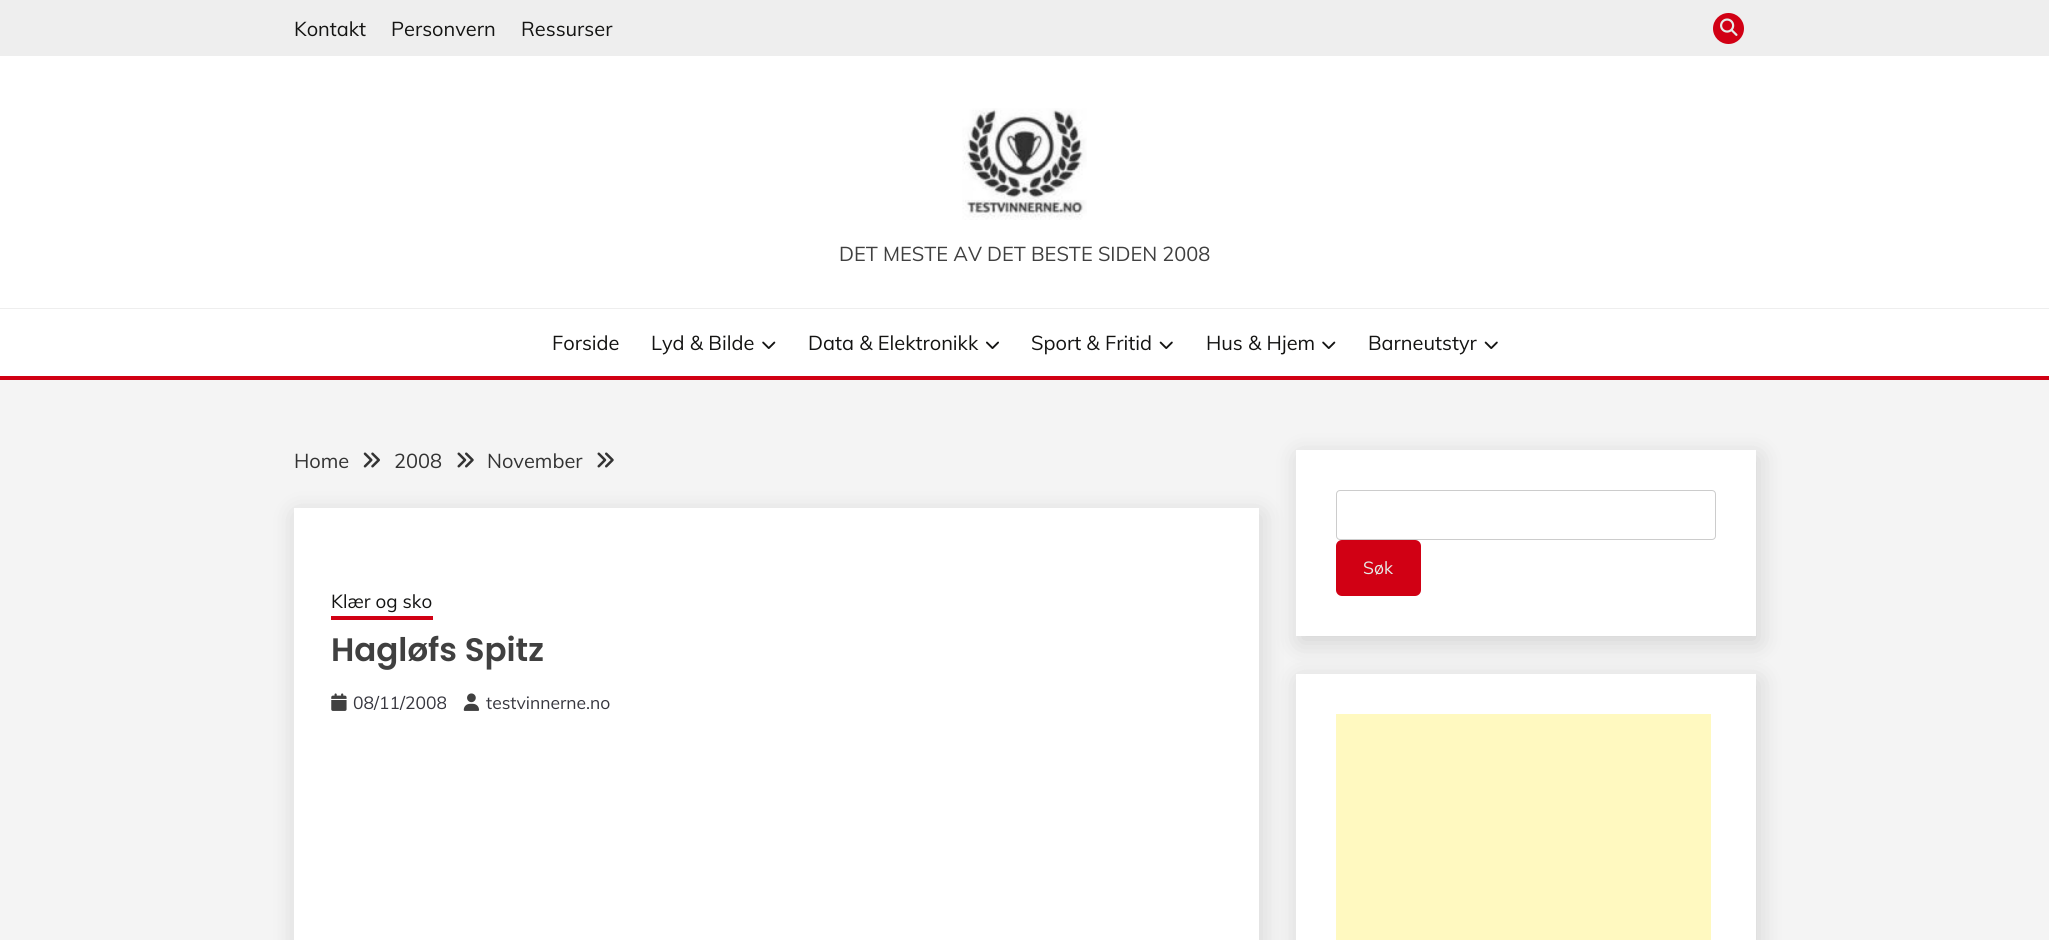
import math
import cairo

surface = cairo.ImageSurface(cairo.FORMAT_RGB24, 2049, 940)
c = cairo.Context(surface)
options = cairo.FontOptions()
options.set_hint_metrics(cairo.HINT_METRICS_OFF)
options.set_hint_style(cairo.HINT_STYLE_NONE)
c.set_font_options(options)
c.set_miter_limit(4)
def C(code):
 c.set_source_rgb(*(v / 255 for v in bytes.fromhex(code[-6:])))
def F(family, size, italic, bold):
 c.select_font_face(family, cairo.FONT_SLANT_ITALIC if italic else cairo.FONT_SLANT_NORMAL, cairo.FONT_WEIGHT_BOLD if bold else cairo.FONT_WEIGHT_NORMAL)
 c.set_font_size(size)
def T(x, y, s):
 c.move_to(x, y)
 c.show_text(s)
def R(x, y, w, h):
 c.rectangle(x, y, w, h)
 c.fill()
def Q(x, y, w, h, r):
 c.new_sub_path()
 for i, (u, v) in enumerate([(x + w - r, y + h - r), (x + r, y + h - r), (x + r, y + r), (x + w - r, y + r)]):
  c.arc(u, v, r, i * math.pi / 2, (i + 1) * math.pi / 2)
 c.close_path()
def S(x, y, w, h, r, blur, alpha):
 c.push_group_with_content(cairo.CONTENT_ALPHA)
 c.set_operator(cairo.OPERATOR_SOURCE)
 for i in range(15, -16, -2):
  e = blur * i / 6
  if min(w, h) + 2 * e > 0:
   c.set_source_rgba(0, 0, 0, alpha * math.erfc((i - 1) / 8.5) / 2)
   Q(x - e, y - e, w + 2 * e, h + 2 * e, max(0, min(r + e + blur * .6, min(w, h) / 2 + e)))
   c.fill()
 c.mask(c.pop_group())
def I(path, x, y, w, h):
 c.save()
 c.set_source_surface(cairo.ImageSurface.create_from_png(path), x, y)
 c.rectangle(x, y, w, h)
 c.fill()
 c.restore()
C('f4f4f4')
c.paint()
C('ffffff')
R(0,56,2049,320)
C('eeeeee')
R(0,0,2049,56)
F('Muli',20,0,0)
C('141413')
T(294,36,'Kontakt')
T(391,36,'Personvern')
T(521,36,'Ressurser')
C('d10014')
c.new_path()
c.arc(1728.5,28.5,15.5,0,2 * math.pi)
c.fill()
I('1.png',1720,18,18,18)
C('eeeeee')
R(0,308,2049,1)
I('2.png',962,108,125,112)
C('404040')
T(839,261,'DET MESTE AV DET BESTE SIDEN 2008')
C('d10014')
R(0,376,2049,4)
C('141413')
T(552,350,'Forside')
T(651,350,'Lyd & Bilde')
I('3.png',762,341,14,8)
T(808,350,'Data & Elektronikk')
I('4.png',986,341,13,8)
T(1031,350,'Sport & Fritid')
I('5.png',1159,341,14,8)
T(1206,350,'Hus & Hjem')
I('3.png',1322,341,14,8)
T(1368,350,'Barneutstyr')
I('5.png',1484,341,14,8)
C('333333')
T(294,468,'Home')
I('6.png',363,452,17,16)
T(394,468,'2008')
I('7.png',457,452,17,16)
T(487,468,'November')
I('7.png',597,452,17,16)
C('000000')
S(296,514,965,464,0,12.5,.14)
C('ffffff')
R(294,508,965,432)
F('Muli',18.75,0,0)
C('141413')
T(331,608,'Klær og sko')
C('d10014')
R(331,616,102,4)
F('Poppins SemiBold',32.5,0,0)
C('404040')
T(331,661,'Hagløfs Spitz')
I('8.png',331,693,16,18)
F('Muli',17.5,0,0)
C('37373f')
T(353,709,'08/11/2008')
I('9.png',463,693,17,18)
T(486,709,'testvinnerne.no')
C('000000')
S(1299,456,460,187,0,12.5,.14)
C('ffffff')
R(1296,450,460,186)
Q(1336.5,490.5,379,49,3.5)
C('cccccc')
c.set_line_width(1)
c.stroke()
C('d10014')
Q(1336,540,85,56,6)
c.fill()
C('e5ece9')
T(1363,574,'Søk')
C('000000')
S(1299,680,460,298,0,12.5,.14)
C('ffffff')
R(1296,674,460,266)
C('fff9c0')
R(1336,714,375,226)
surface.write_to_png('o.png')
